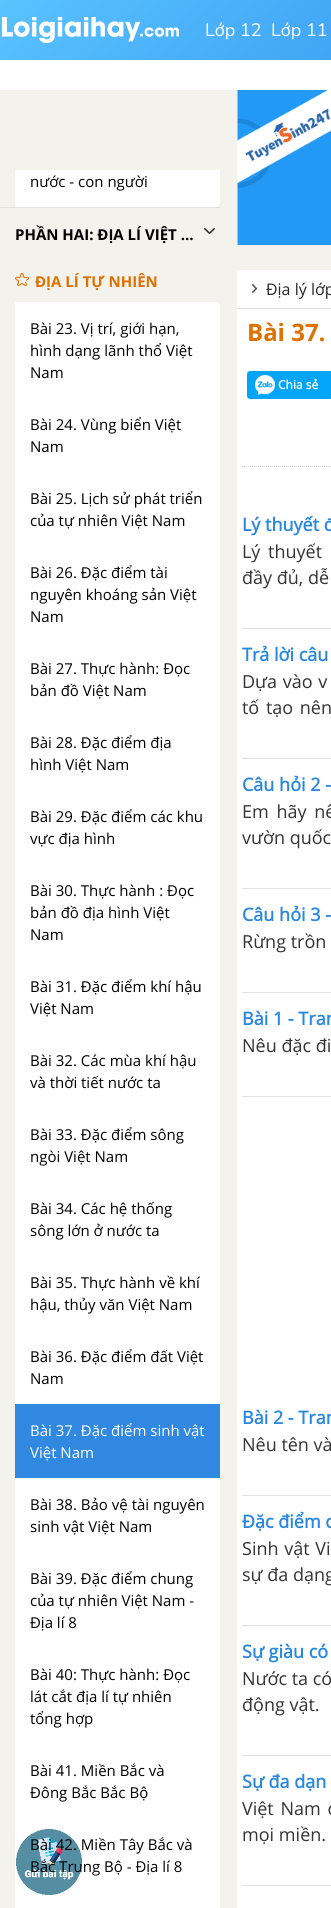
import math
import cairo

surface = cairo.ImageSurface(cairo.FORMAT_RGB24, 331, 1908)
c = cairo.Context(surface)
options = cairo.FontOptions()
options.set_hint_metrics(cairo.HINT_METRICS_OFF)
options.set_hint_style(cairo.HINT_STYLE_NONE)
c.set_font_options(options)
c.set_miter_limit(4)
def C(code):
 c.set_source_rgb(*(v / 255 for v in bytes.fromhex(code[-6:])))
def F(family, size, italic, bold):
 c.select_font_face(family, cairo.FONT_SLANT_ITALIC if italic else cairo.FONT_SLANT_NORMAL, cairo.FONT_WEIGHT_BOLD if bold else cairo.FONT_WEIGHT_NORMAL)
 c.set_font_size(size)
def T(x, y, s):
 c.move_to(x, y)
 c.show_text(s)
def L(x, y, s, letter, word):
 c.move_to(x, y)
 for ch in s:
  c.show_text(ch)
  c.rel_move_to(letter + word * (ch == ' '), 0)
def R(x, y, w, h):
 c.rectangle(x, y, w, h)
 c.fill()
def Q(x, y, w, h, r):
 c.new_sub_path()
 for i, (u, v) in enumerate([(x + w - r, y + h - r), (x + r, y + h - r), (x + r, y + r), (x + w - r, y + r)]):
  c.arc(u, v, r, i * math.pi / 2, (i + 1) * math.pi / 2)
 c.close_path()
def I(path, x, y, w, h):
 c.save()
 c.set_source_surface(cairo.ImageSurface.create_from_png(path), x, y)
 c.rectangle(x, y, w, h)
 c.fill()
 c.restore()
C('ffffff')
c.paint()
gradient = cairo.LinearGradient(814,311,251,-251)
gradient.add_color_stop_rgba(0,0.071,0.439,0.89,1)
gradient.add_color_stop_rgba(1,0.349,0.761,1,1)
c.set_source(gradient)
R(0,0,331,60)
I('1.png',2,17,177,26)
F('Nunito',18,0,0)
C('ffffff')
T(205,36,'Lớp 12')
T(271,36,'Lớp 11')
C('f4f2ec')
R(0,90,331,1818)
C('e0e0e0')
R(0,207,220,1)
C('ffffff')
c.new_path()
c.move_to(15,170)
c.line_to(220,170)
c.line_to(220,202)
c.curve_to(220,205,218,207,215,207)
c.line_to(15,207)
c.close_path()
c.fill()
F('Open Sans',15,0,0)
C('000000')
T(30,187,'nước - con người')
F('Open Sans',15,0,1)
T(15,240,'PHẦN HAI: ĐỊA LÍ VIỆT …')
I('2.png',204,228,11,6)
I('3.png',15,273,14,13)
C('df7100')
T(35,287,'ĐỊA LÍ TỰ NHIÊN')
C('ffffff')
c.new_path()
c.move_to(15,302)
c.line_to(215,302)
c.curve_to(218,302,220,304,220,307)
c.line_to(220,398)
c.line_to(15,398)
c.close_path()
c.fill()
F('Open Sans',15,0,0)
C('000000')
T(30,334,'Bài 23. Vị trí, giới hạn,')
T(30,356,'hình dạng lãnh thổ Việt')
T(30,378,'Nam')
C('ffffff')
R(15,398,205,1006)
C('000000')
T(30,430,'Bài 24. Vùng biển Việt')
T(30,452,'Nam')
T(30,504,'Bài 25. Lịch sử phát triển')
T(30,526,'của tự nhiên Việt Nam')
T(30,578,'Bài 26. Đặc điểm tài')
T(30,600,'nguyên khoáng sản Việt')
T(30,622,'Nam')
T(30,674,'Bài 27. Thực hành: Đọc')
T(30,696,'bản đồ Việt Nam')
T(30,748,'Bài 28. Đặc điểm địa')
T(30,770,'hình Việt Nam')
T(30,822,'Bài 29. Đặc điểm các khu')
T(30,844,'vực địa hình')
T(30,896,'Bài 30. Thực hành : Đọc')
T(30,918,'bản đồ địa hình Việt')
T(30,940,'Nam')
T(30,992,'Bài 31. Đặc điểm khí hậu')
T(30,1014,'Việt Nam')
T(30,1066,'Bài 32. Các mùa khí hậu')
T(30,1088,'và thời tiết nước ta')
T(30,1140,'Bài 33. Đặc điểm sông')
T(30,1162,'ngòi Việt Nam')
T(30,1214,'Bài 34. Các hệ thống')
T(30,1236,'sông lớn ở nước ta')
T(30,1288,'Bài 35. Thực hành về khí')
T(30,1310,'hậu, thủy văn Việt Nam')
T(30,1362,'Bài 36. Đặc điểm đất Việt')
T(30,1384,'Nam')
C('3088e1')
R(15,1404,205,74)
C('ffffff')
T(30,1436,'Bài 37. Đặc điểm sinh vật')
T(30,1458,'Việt Nam')
R(15,1478,205,430)
C('000000')
T(30,1510,'Bài 38. Bảo vệ tài nguyên')
T(30,1532,'sinh vật Việt Nam')
T(30,1584,'Bài 39. Đặc điểm chung')
T(30,1606,'của tự nhiên Việt Nam -')
T(30,1628,'Địa lí 8')
T(30,1680,'Bài 40: Thực hành: Đọc')
T(30,1702,'lát cắt địa lí tự nhiên')
T(30,1724,'tổng hợp')
T(30,1776,'Bài 41. Miền Bắc và')
T(30,1798,'Đông Bắc Bắc Bộ')
I('7.png',16,1829,66,66)
T(30,1850,'Bài 42. Miền Tây Bắc và')
T(30,1872,'Bắc Trung Bộ - Địa lí 8')
I('4.png',237,90,94,155)
C('ffffff')
R(237,270,94,1638)
C('e0e0e0')
R(237,308,94,1)
I('5.png',252,284,5,9)
F('Open Sans',16,0,0)
C('262626')
T(266,295,'Địa lý lớp')
F('Open Sans',24,0,1)
C('df7100')
T(247,341,'Bài 37.')
c.new_path()
c.move_to(242,466.5)
c.line_to(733,466.5)
C('cccccc')
c.set_line_width(1)
c.set_dash([1,1])
c.stroke()
C('03a5fa')
Q(247,371,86,28,3)
c.fill()
I('6.png',255,375,20,20)
F('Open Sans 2',12,0,1)
C('ffffff')
T(278,389,'Chia sẻ')
C('e0e0e0')
R(242,628,89,1)
F('Open Sans 2',18,0,1)
C('2888e1')
T(242,531,'Lý thuyết đ')
F('Open Sans',18,0,0)
C('333333')
L(242,558,'Lý thuyết',0,3)
T(242,584,'đầy đủ, dễ')
C('e0e0e0')
R(242,758,89,1)
F('Open Sans 2',18,0,1)
C('2888e1')
T(242,661,'Trả lời câu')
F('Open Sans',18,0,0)
C('333333')
L(242,688,'Dựa vào v',0,1)
L(242,714,'tố tạo nên',0,2)
C('e0e0e0')
R(242,888,89,1)
F('Open Sans 2',18,0,1)
C('2888e1')
T(242,791,'Câu hỏi 2 -')
F('Open Sans',18,0,0)
C('333333')
L(242,818,'Em hãy nê',0,3)
T(242,844,'vườn quốc')
C('e0e0e0')
R(242,992,89,1)
F('Open Sans 2',18,0,1)
C('2888e1')
T(242,921,'Câu hỏi 3 -')
F('Open Sans',18,0,0)
C('333333')
T(242,948,'Rừng trồn')
C('e0e0e0')
R(242,1096,89,1)
F('Open Sans 2',18,0,1)
C('2888e1')
T(242,1025,'Bài 1 - Tran')
F('Open Sans',18,0,0)
C('333333')
T(242,1052,'Nêu đặc đi')
C('e0e0e0')
R(242,1495,89,1)
F('Open Sans 2',18,0,1)
C('2888e1')
T(242,1424,'Bài 2 - Tran')
F('Open Sans',18,0,0)
C('333333')
T(242,1451,'Nêu tên và')
C('e0e0e0')
R(242,1625,89,1)
F('Open Sans 2',18,0,1)
C('2888e1')
T(242,1528,'Đặc điểm c')
F('Open Sans',18,0,0)
C('333333')
L(242,1555,'Sinh vật Vi',0,1)
T(242,1581,'sự đa dạng')
C('e0e0e0')
R(242,1755,89,1)
F('Open Sans 2',18,0,1)
C('2888e1')
T(242,1658,'Sự giàu có')
F('Open Sans',18,0,0)
C('333333')
T(242,1685,'Nước ta có')
T(242,1711,'động vật.')
C('e0e0e0')
R(242,1885,89,1)
F('Open Sans 2',18,0,1)
C('2888e1')
T(242,1788,'Sự đa dạn')
F('Open Sans',18,0,0)
C('333333')
L(242,1815,'Việt Nam c',0,2)
T(242,1841,'mọi miền.')
surface.write_to_png('o.png')
